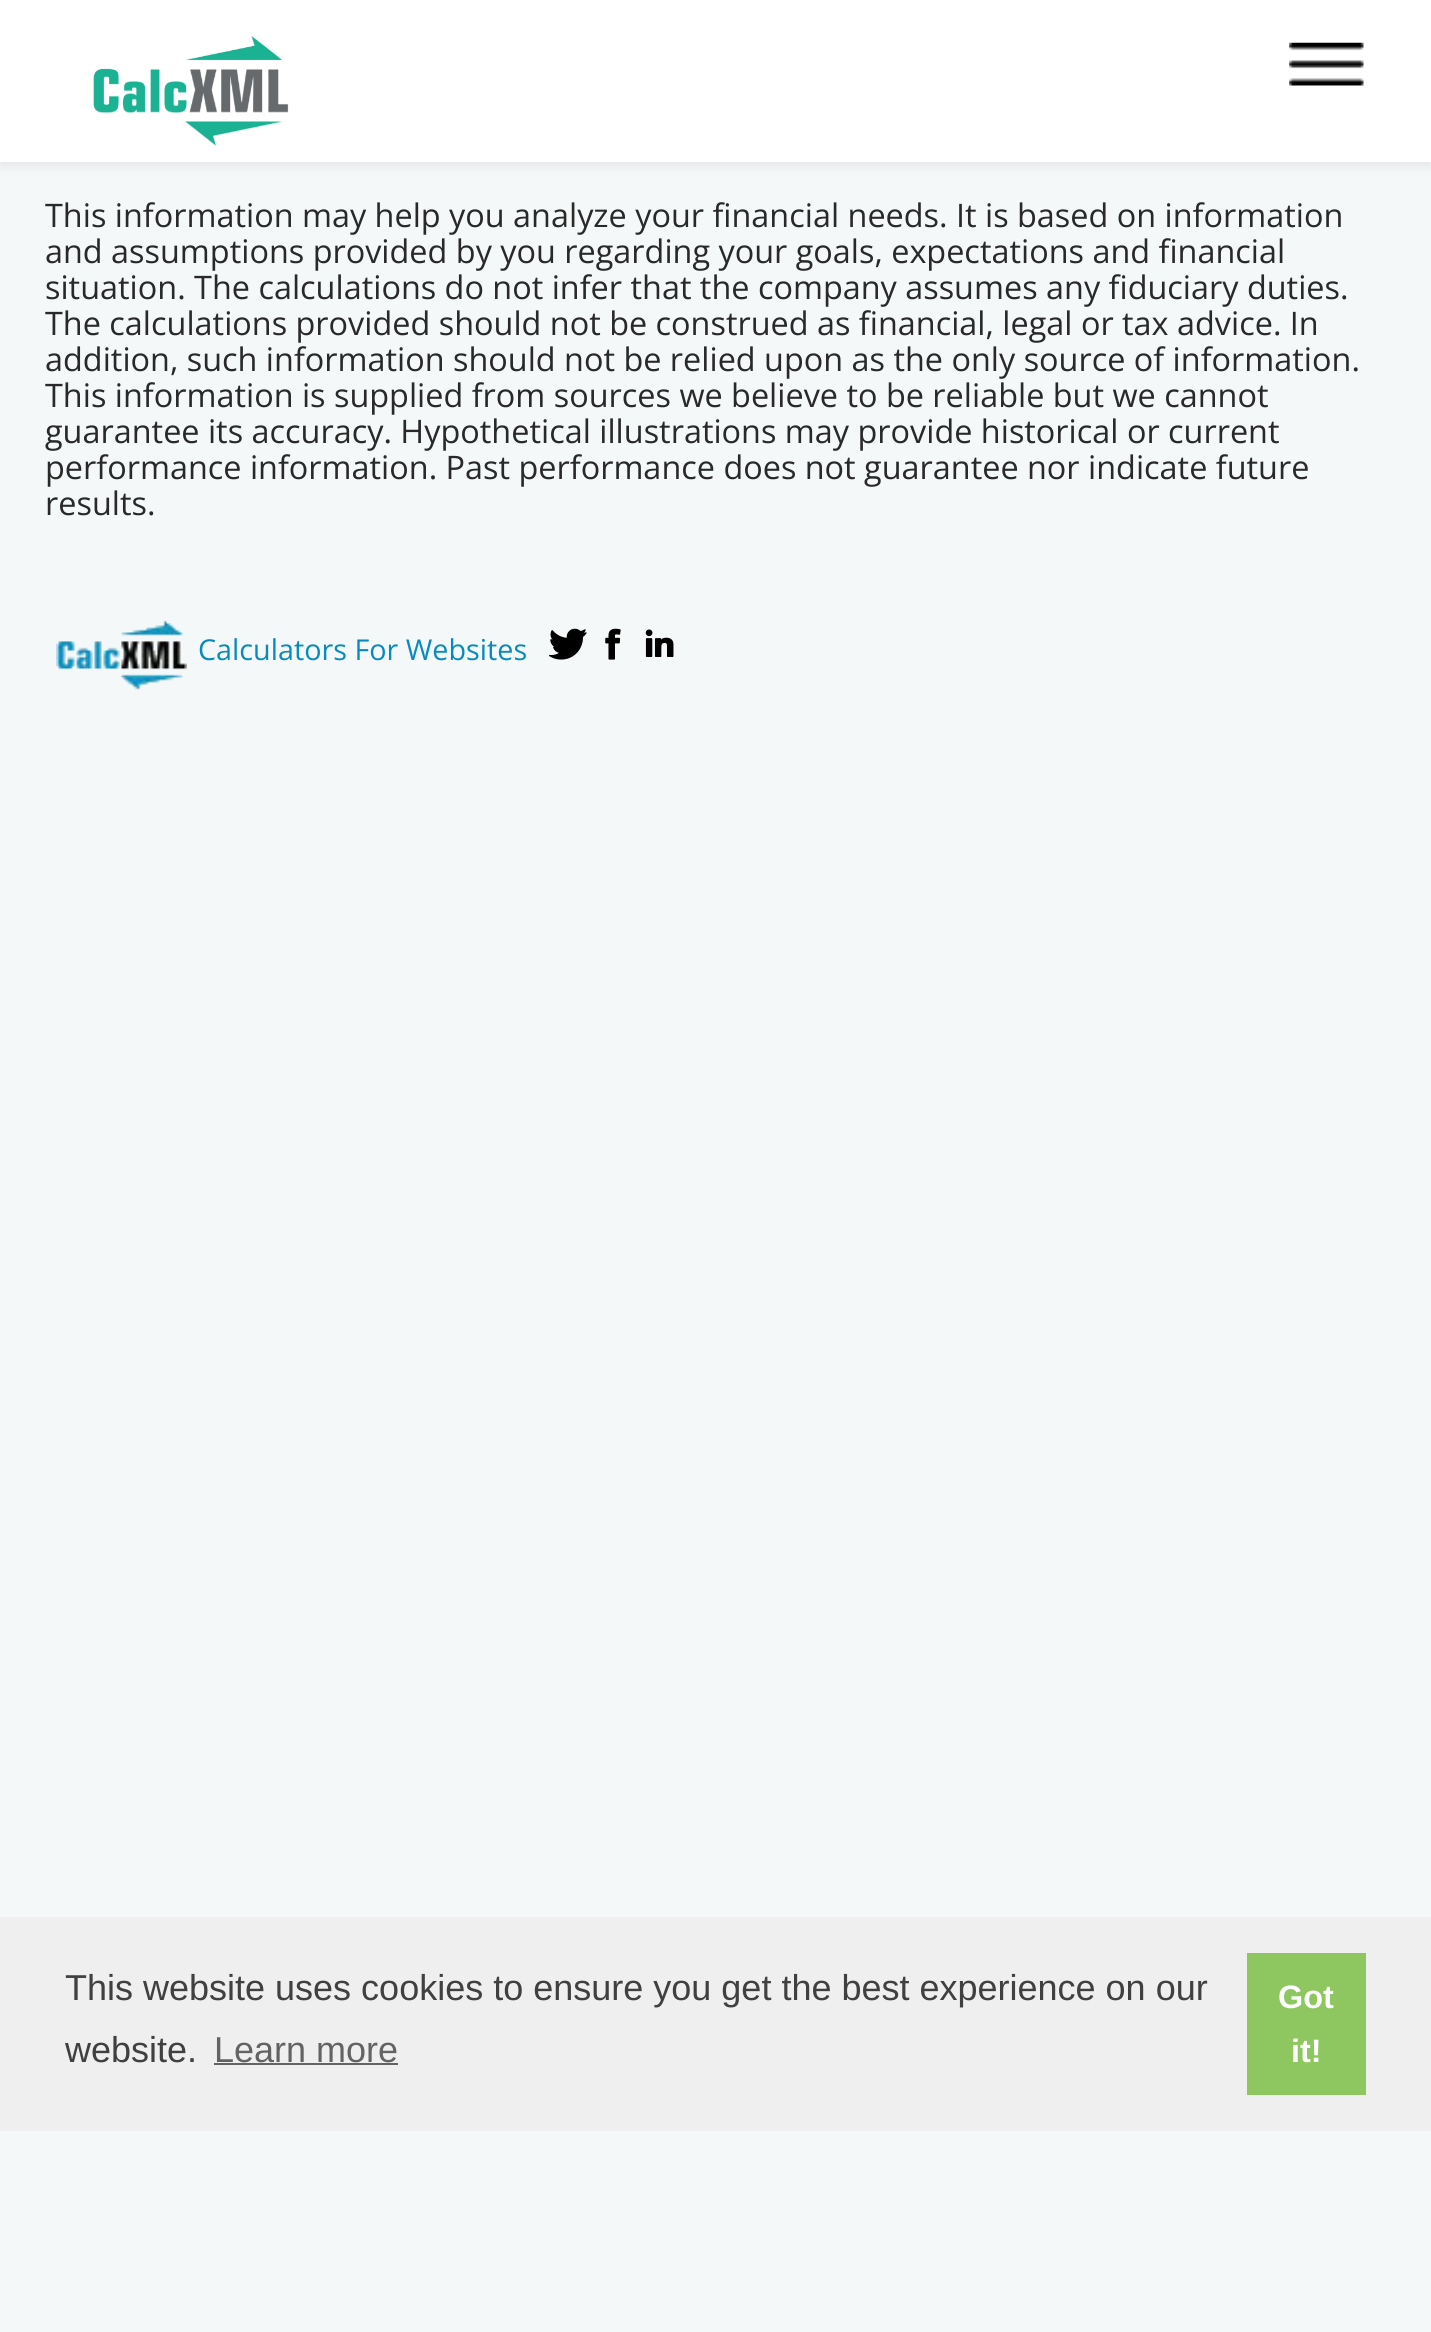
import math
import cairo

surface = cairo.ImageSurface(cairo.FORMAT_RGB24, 1431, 2332)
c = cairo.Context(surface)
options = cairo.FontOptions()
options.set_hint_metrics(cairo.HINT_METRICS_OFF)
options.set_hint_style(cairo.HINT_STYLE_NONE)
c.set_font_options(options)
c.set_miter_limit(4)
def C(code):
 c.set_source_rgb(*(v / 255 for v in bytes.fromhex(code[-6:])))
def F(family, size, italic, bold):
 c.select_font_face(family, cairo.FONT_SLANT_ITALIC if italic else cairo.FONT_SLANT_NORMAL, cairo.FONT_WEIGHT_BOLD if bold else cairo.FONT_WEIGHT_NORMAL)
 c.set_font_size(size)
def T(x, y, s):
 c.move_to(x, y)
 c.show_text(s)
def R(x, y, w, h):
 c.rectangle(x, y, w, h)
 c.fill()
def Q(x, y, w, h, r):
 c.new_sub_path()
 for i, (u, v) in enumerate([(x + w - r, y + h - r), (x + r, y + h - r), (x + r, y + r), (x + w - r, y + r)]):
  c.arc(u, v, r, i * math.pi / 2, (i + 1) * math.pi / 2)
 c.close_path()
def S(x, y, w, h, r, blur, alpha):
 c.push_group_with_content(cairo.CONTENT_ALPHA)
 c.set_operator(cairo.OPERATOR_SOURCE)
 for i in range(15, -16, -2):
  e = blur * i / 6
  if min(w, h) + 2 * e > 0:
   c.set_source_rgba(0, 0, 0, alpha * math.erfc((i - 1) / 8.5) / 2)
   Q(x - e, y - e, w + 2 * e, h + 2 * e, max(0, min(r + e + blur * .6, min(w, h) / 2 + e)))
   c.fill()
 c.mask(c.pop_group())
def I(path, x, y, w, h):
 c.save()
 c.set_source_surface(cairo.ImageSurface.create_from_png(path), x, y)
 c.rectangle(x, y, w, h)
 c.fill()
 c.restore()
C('f5f8f9')
c.paint()
C('404040')
S(0,5,1431,162,0,4.5,.09)
C('ffffff')
R(0,0,1431,162)
I('1.png',93,36,196,110)
I('2.png',1289,42,75,44)
F('Open Sans',32.4,0,0)
C('292929')
T(45,227,'This information may help you analyze your financial needs. It is based on information')
T(45,263,'and assumptions provided by you regarding your goals, expectations and financial')
T(45,299,'situation. The calculations do not infer that the company assumes any fiduciary duties.')
T(45,335,'The calculations provided should not be construed as financial, legal or tax advice. In')
T(45,371,'addition, such information should not be relied upon as the only source of information.')
T(45,407,'This information is supplied from sources we believe to be reliable but we cannot')
T(45,443,'guarantee its accuracy. Hypothetical illustrations may provide historical or current')
T(45,479,'performance information. Past performance does not guarantee nor indicate future')
T(45,515,'results.')
I('3.png',56,620,131,70)
F('Open Sans',28.75,0,0)
C('088abe')
T(198,660,'Calculators For Websites')
I('4.png',549,628,38,32)
I('5.png',605,628,16,32)
I('6.png',645,629,29,28)
C('efefef')
R(0,1917,1431,214)
F('Liberation Sans',36,0,0)
C('404040')
T(65,2000,'This website uses cookies to ensure you get the best experience on our')
T(65,2062,'website.')
C('636363')
T(214,2062,'Learn more')
R(214,2063,184,2)
C('8ec760')
R(1247,1953,119,142)
F('Liberation Sans',32.4,0,1)
C('ffffff')
T(1278,2008,'Got')
T(1291,2062,'it!')
surface.write_to_png('o.png')
